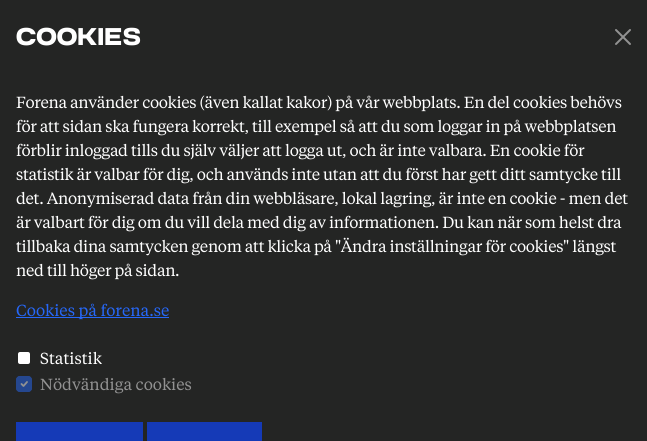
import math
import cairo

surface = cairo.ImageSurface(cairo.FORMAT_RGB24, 647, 441)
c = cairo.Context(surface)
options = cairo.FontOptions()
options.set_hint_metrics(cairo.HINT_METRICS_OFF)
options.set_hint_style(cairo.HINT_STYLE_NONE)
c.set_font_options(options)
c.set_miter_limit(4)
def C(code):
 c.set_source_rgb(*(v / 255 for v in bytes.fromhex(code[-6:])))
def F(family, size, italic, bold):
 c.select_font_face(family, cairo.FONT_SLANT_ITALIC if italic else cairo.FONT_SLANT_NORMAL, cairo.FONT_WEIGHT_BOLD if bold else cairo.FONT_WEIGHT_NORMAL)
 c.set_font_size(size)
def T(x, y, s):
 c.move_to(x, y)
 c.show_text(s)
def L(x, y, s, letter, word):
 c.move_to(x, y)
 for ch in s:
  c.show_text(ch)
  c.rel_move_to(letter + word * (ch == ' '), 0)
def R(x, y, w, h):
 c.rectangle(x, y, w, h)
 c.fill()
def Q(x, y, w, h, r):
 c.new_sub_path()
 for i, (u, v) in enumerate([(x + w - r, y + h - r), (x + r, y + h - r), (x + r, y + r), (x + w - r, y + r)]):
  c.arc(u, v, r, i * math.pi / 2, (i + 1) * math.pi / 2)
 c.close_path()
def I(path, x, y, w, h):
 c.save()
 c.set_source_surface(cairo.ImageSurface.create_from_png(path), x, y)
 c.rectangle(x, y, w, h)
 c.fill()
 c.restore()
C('242524')
c.paint()
F('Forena',27,0,0)
C('ffffff')
T(16,45,'Cookies')
I('1.png',615,29,16,16)
F('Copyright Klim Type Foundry',16,0,0)
L(16,108,'Forena använder cookies (även kallat kakor) på vår webbplats. En del cookies behövs',-.32,0)
L(16,132,'för att sidan ska fungera korrekt, till exempel så att du som loggar in på webbplatsen',-.32,0)
L(16,156,'förblir inloggad tills du själv väljer att logga ut, och är inte valbara. En cookie för',-.32,0)
L(16,180,'statistik är valbar för dig, och används inte utan att du först har gett ditt samtycke till',-.32,0)
L(16,204,'det. Anonymiserad data från din webbläsare, lokal lagring, är inte en cookie - men det',-.32,0)
L(16,228,'är valbart för dig om du vill dela med dig av informationen. Du kan när som helst dra',-.32,0)
L(16,252,'tillbaka dina samtycken genom att klicka på "Ändra inställningar för cookies" längst',-.32,0)
L(16,276,'ned till höger på sidan.',-.32,0)
C('2668f9')
R(16,317,153,1)
T(16,316,'Cookies på forena.se')
C('ffffff')
Q(17,351,14,14,3)
c.fill_preserve()
C('242524')
c.stroke()
C('ffffff')
T(40,364,'Statistik')
C('25478f')
Q(16,376,16,16,4)
c.fill()
c.new_path()
c.move_to(21.5,384)
c.line_to(23.5,386)
c.line_to(27,382)
C('929292')
c.set_line_width(1.8)
c.set_line_cap(cairo.LINE_CAP_ROUND)
c.set_line_join(cairo.LINE_JOIN_ROUND)
c.stroke()
Q(17,377,14,14,3)
C('25478f')
c.set_line_width(2)
c.set_line_cap(cairo.LINE_CAP_BUTT)
c.set_line_join(cairo.LINE_JOIN_MITER)
c.stroke()
C('929292')
T(40,390,'Nödvändiga cookies')
C('153ab7')
R(16,422,127,19)
R(147,422,115,19)
surface.write_to_png('o.png')
